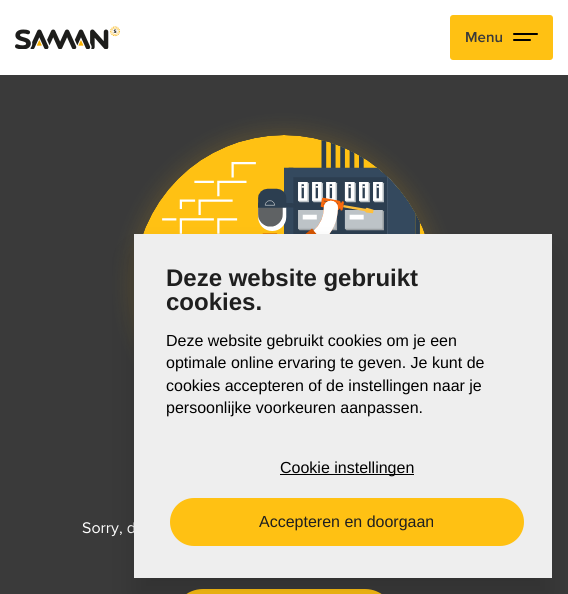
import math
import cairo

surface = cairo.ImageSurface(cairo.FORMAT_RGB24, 568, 594)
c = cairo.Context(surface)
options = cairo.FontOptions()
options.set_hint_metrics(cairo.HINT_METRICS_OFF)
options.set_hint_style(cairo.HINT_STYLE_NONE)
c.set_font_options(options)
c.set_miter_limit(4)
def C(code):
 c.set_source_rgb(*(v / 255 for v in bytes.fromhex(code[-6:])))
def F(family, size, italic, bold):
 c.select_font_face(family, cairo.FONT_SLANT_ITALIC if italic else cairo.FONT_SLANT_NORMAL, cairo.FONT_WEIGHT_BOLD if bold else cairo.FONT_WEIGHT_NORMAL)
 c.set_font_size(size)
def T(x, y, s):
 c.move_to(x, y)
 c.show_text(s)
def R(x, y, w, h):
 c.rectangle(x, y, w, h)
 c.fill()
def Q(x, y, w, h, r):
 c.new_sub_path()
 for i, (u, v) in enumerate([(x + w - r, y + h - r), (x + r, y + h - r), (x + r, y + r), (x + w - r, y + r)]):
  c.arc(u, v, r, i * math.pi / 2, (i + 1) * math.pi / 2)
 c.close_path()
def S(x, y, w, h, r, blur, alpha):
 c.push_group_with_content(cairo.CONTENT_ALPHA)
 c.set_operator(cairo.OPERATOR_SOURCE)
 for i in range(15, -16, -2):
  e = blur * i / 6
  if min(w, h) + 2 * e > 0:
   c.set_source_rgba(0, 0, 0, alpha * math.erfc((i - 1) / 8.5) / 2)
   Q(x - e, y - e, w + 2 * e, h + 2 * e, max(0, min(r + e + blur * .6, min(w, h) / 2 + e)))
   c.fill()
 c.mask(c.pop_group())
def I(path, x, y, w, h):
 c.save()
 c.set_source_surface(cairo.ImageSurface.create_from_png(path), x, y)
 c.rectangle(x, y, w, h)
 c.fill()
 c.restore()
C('ffffff')
c.paint()
I('1.png',15,26,105,23)
C('ffc113')
Q(450,15,103,45,3)
c.fill()
F('Proxima Nova SemiBold',15,0,0)
C('3a3a3a')
T(465,42,'Menu')
C('000000')
Q(513,33,25,2,1)
c.fill()
Q(513,39,18,2,1)
c.fill()
C('3a3a3a')
R(0,75,568,519)
C('ffc113')
S(126,127,316,316,158,7.5,.1)
I('2.png',143,135,282,99)
F('Proxima Nova',16,0,0)
C('ffffff')
T(82,533,'Sorry, d')
C('ffc113')
Q(173,589,222,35,30)
c.fill()
C('000000')
S(134,254,418,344,0,15,.15)
C('eeeeee')
R(134,234,418,344)
F('Liberation Sans',24,0,1)
C('1f1f1f')
T(166,286,'Deze website gebruikt')
T(166,310,'cookies.')
F('Liberation Sans',16,0,0)
C('000000')
T(166,346,'Deze website gebruikt cookies om je een')
T(166,368,'optimale online ervaring te geven. Je kunt de')
T(166,391,'cookies accepteren of de instellingen naar je')
T(166,413,'persoonlijke voorkeuren aanpassen.')
R(280,474,134,1)
T(280,473,'Cookie instellingen')
C('ffc113')
Q(171,499,352,46,23)
c.fill_preserve()
c.stroke()
C('1f1f1f')
T(259,527,'Accepteren en doorgaan')
surface.write_to_png('o.png')
